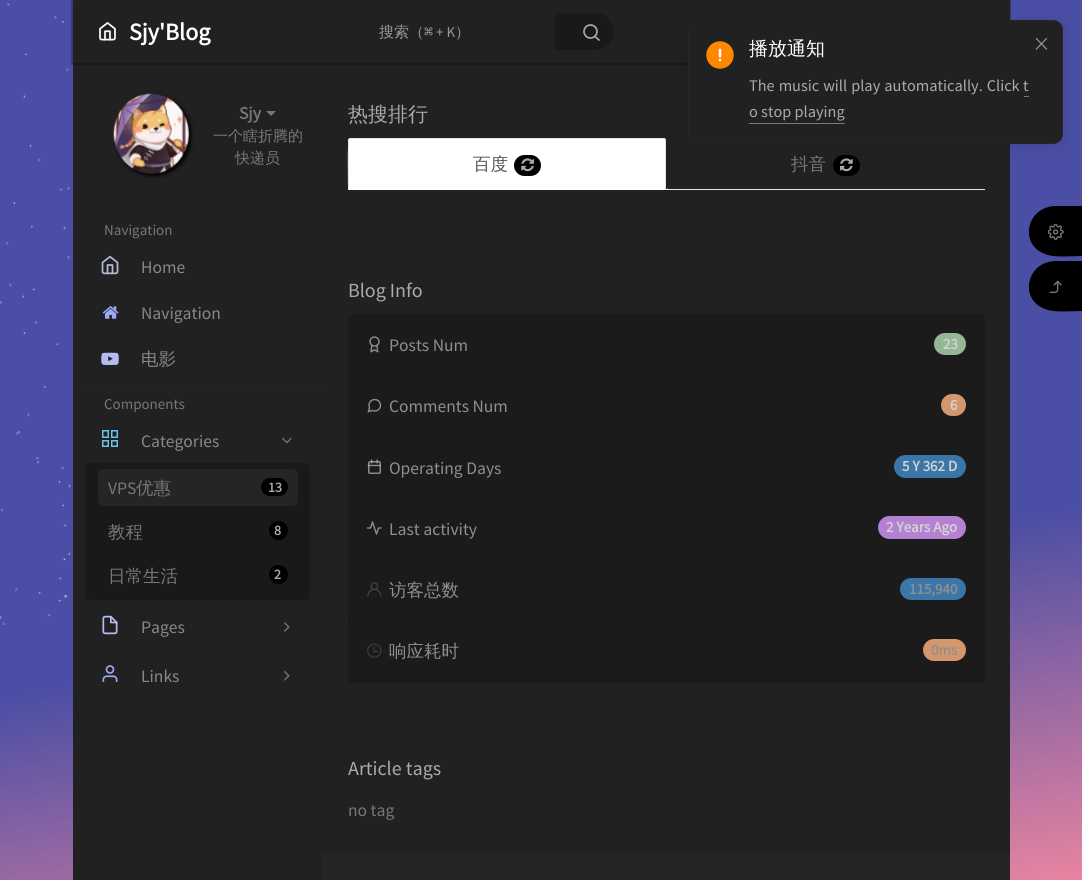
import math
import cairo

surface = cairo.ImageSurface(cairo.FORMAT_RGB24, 1082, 880)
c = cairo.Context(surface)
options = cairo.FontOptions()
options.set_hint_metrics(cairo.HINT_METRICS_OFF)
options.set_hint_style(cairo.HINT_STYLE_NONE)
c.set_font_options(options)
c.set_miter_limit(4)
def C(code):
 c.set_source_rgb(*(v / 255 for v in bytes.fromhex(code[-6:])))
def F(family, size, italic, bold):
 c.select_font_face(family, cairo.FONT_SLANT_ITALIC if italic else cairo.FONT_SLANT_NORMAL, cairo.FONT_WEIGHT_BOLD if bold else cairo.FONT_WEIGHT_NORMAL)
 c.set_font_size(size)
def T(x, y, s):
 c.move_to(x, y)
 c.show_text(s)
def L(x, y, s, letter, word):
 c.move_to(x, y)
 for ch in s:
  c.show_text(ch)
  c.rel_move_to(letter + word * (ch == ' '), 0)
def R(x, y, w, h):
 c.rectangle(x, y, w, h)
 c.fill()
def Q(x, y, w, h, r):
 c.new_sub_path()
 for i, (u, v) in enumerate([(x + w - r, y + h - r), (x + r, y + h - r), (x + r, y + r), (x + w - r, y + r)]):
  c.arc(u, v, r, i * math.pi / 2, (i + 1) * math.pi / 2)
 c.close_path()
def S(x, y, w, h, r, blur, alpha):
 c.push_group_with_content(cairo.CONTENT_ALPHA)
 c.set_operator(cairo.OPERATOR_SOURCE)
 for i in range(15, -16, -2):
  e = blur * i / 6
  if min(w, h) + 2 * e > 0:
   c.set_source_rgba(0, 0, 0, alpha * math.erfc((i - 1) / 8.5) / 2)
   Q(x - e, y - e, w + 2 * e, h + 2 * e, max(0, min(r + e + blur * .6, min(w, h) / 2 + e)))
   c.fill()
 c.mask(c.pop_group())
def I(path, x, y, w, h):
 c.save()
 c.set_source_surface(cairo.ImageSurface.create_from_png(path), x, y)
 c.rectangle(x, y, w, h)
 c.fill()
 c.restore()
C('ffffff')
c.paint()
gradient = cairo.LinearGradient(450,-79,633,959)
gradient.add_color_stop_rgba(.65,0.29,0.306,0.643,1)
gradient.add_color_stop_rgba(1,0.91,0.518,0.631,1)
c.set_source(gradient)
R(0,0,1082,880)
I('1.png',0,3,71,622)
C('212121')
R(73,63,250,817)
R(323,63,687,790)
C('000000')
S(71,0,940,65,0,.5,.25)
C('212121')
R(73,0,937,63)
I('2.png',99,22,17,19)
F('Source Sans Pro',24,0,1)
C('ffffff')
T(129,40,'Sjy\'Blog')
C('191919')
Q(360,13,254,37,18.5)
c.fill()
C('212121')
c.new_path()
c.move_to(378.5,13)
c.line_to(555,13)
c.line_to(555,50)
c.line_to(378.5,50)
c.curve_to(368.5,50,360,41.5,360,31.5)
c.curve_to(360,21.5,368.5,13,378.5,13)
c.close_path()
c.fill()
F('WenQuanYi Zen Hei Medium',15,0,0)
C('999999')
T(379,37,'搜索（')
F('DejaVu Sans Mono',15,0,0)
T(424,37,'⌘')
F('Source Sans Pro',15,0,0)
T(436,37,'+ K')
F('WenQuanYi Zen Hei Medium',15,0,0)
T(455,37,'）')
c.new_path()
c.arc(590.5,31.5,6.5,0,2 * math.pi)
C('aaaaaa')
c.set_line_width(1.7)
c.stroke()
c.new_path()
c.move_to(599,40)
c.line_to(595,36.5)
c.set_line_cap(cairo.LINE_CAP_ROUND)
c.set_line_join(cairo.LINE_JOIN_ROUND)
c.stroke()
C('000000')
S(116,96,75,80,37.5,2,1)
I('3.png',113,93,76,81)
F('Source Sans Pro',17.5,0,1)
C('777777')
T(239,119,'Sjy')
c.new_path()
c.move_to(266,111)
c.line_to(276,111)
c.line_to(271,116)
c.close_path()
c.fill()
F('WenQuanYi Zen Hei Medium',15,0,0)
T(213,141,'一个瞎折腾的')
T(235,163,'快递员')
F('Source Sans Pro',15,0,0)
T(104,235,'Navigation')
I('4.png',101,255,18,20)
F('Source Sans Pro',17.5,0,0)
C('888888')
T(141,273,'Home')
I('5.png',102,306,17,13)
T(141,319,'Navigation')
I('6.png',101,352,18,13)
F('WenQuanYi Zen Hei Medium',17.5,0,0)
T(141,365,'电影')
C('252525')
c.new_path()
c.move_to(85.5,385)
c.line_to(323,385)
c.line_to(323,386)
c.line_to(85.5,386)
c.curve_to(85,386,85,386,85,385.5)
c.curve_to(85,385,85,385,85.5,385)
c.close_path()
c.fill()
F('Source Sans Pro',15,0,0)
C('777777')
T(104,409,'Components')
I('7.png',102,430,16,17)
F('Source Sans Pro',17.5,0,0)
C('888888')
T(141,447,'Categories')
I('8.png',282,437,10,7)
C('191919')
Q(85,463,225,137,4)
c.fill()
C('252525')
Q(98,469,200,37,6)
c.fill()
C('777777')
T(108,494,'VPS')
F('WenQuanYi Zen Hei Medium',17.5,0,0)
T(136,494,'优惠')
C('000000')
Q(261,478,27,18,9)
c.fill()
F('Source Sans Pro',14,0,1)
C('aaaaaa')
T(268,492,'13')
F('WenQuanYi Zen Hei Medium',17.5,0,0)
C('777777')
T(108,538,'教程')
C('000000')
c.new_path()
c.arc(278.5,530.5,9.5,0,2 * math.pi)
c.fill()
F('Source Sans Pro',14,0,1)
C('aaaaaa')
T(274,535,'8')
F('WenQuanYi Zen Hei Medium',17.5,0,0)
C('777777')
T(108,582,'日常生活')
C('000000')
c.new_path()
c.arc(278.5,574.5,9.5,0,2 * math.pi)
c.fill()
F('Source Sans Pro',14,0,1)
C('aaaaaa')
T(274,579,'2')
I('9.png',102,615,16,20)
F('Source Sans Pro',17.5,0,0)
C('888888')
T(141,633,'Pages')
I('10.png',284,622,6,10)
I('11.png',102,665,16,18)
T(141,682,'Links')
I('12.png',284,671,6,10)
F('WenQuanYi Zen Hei Medium',20,0,0)
C('aaaaaa')
T(348,121,'热搜排行')
C('dee5e7')
R(666,189,319,1)
C('ffffff')
c.new_path()
c.move_to(350.5,138)
c.line_to(663.5,138)
c.curve_to(665,138,666,139,666,140.5)
c.line_to(666,190)
c.line_to(348,190)
c.line_to(348,140.5)
c.curve_to(348,139,349,138,350.5,138)
c.close_path()
c.fill()
C('dee5e7')
c.new_path()
c.move_to(350,138)
c.line_to(349,139)
c.line_to(665,139)
c.line_to(664,138)
c.close_path()
c.fill()
c.new_path()
c.move_to(666,190)
c.line_to(666,140)
c.line_to(665,139)
c.line_to(665,189)
c.close_path()
c.fill()
C('ffffff')
c.new_path()
c.move_to(348,190)
c.line_to(666,190)
c.line_to(665,189)
c.line_to(349,189)
c.line_to(349,188)
c.close_path()
c.fill()
C('dee5e7')
c.new_path()
c.move_to(349,139)
c.curve_to(347,140,348,184,348,190)
c.line_to(349,188)
c.close_path()
c.fill()
F('WenQuanYi Zen Hei Medium',17.5,0,0)
C('555555')
T(473,170,'百度')
C('000000')
Q(514,155,27,21,10.5)
c.fill()
I('13.png',521,158,13,14)
C('dee5e7')
c.new_path()
c.move_to(985,190)
c.line_to(984,189)
c.line_to(668,189)
c.line_to(668,188)
c.line_to(666,190)
c.close_path()
c.fill()
C('777777')
T(791,170,'抖音')
C('000000')
Q(833,155,27,21,10.5)
c.fill()
I('14.png',840,158,13,14)
F('Source Sans Pro',20,0,0)
C('aaaaaa')
T(348,297,'Blog Info')
C('1b1b1b')
c.new_path()
c.move_to(353,314)
c.line_to(980,314)
c.curve_to(983,314,985,316,985,319)
c.line_to(985,376)
c.line_to(348,376)
c.line_to(348,319)
c.curve_to(348,316,350,314,353,314)
c.close_path()
c.fill()
I('15.png',369,336,11,17)
F('Source Sans Pro',17.5,0,0)
C('8f8f8f')
T(389,351,'Posts Num')
C('92b792')
Q(934,333,32,22,11)
c.fill()
F('Source Sans Pro',15,0,1)
C('d3d3d3')
T(943,349,'23')
c.set_source_rgba(0.098,0.098,0.098,0.8)
R(348,376,637,62)
I('16.png',367,398,15,15)
F('Source Sans Pro',17.5,0,0)
C('8f8f8f')
T(389,412,'Comments Num')
C('d3966d')
Q(941,394,25,22,11)
c.fill()
F('Source Sans Pro',15,0,1)
C('d3d3d3')
T(950,410,'6')
c.set_source_rgba(0.098,0.098,0.098,0.8)
R(348,438,637,61)
I('17.png',367,459,15,15)
F('Source Sans Pro',17.5,0,0)
C('8f8f8f')
T(389,474,'Operating Days')
C('3b76a8')
Q(894,455,72,23,11.5)
c.fill()
F('Source Sans Pro',15,0,1)
C('d3d3d3')
T(902,471,'5 Y 362 D')
c.set_source_rgba(0.098,0.098,0.098,0.8)
R(348,499,637,61)
c.new_path()
c.move_to(381,528)
c.line_to(378.5,528)
c.line_to(376.5,534)
c.line_to(372.5,522)
c.line_to(370.5,528)
c.line_to(367.5,528)
C('8f8f8f')
c.set_line_width(1.4)
c.stroke()
F('Source Sans Pro',17.5,0,0)
T(389,535,'Last activity')
C('b581d3')
Q(878,516,88,23,11.5)
c.fill()
F('Source Sans Pro',15,0,1)
C('d3d3d3')
T(886,532,'2 Years Ago')
c.set_source_rgba(0.098,0.098,0.098,0.8)
R(348,560,637,61)
I('18.png',367,582,15,15)
F('WenQuanYi Zen Hei Medium',17.5,0,0)
C('8f8f8f')
T(389,596,'访客总数')
C('3b76a8')
Q(900,578,66,22,11)
c.fill()
F('Source Sans Pro',15,0,1)
C('8f8f8f')
T(909,594,'115,940')
c.set_source_rgba(0.098,0.098,0.098,0.8)
c.new_path()
c.move_to(348,620)
c.line_to(985,620)
c.line_to(985,678)
c.curve_to(985,681,983,683,980,683)
c.line_to(353,683)
c.curve_to(350,683,348,681,348,678)
c.close_path()
c.fill()
I('19.png',367,643,15,15)
F('WenQuanYi Zen Hei Medium',17.5,0,0)
C('8f8f8f')
T(389,657,'响应耗时')
C('d3966d')
Q(923,639,43,22,11)
c.fill()
F('Source Sans Pro',15,0,1)
C('8f8f8f')
T(931,655,'0ms')
F('Source Sans Pro',20,0,0)
C('aaaaaa')
T(348,775,'Article tags')
F('Source Sans Pro',17.5,0,0)
C('777777')
T(348,816,'no tag')
C('000000')
c.new_path()
c.move_to(1056,261)
c.line_to(1082,261)
c.line_to(1082,311)
c.curve_to(1072,311,1054,313,1045,309)
c.curve_to(1018,299,1027,261,1056,261)
c.close_path()
c.fill()
I('20.png',1049,280,13,13)
C('252525')
R(323,853,687,27)
C('000000')
S(688,23,375,123,10,7.5,.1)
C('212121')
Q(688.5,20.5,374,123,9.5)
c.fill_preserve()
C('252525')
c.set_line_width(1)
c.set_line_cap(cairo.LINE_CAP_BUTT)
c.set_line_join(cairo.LINE_JOIN_MITER)
c.stroke()
I('21.png',706,41,28,28)
F('WenQuanYi Zen Hei Medium',19,0,0)
C('ffffff')
T(749,55,'播放通知')
F('Source Sans Pro Light',31,0,0)
C('999999')
T(1034,54,'×')
F('Source Sans Pro',16.25,0,0)
C('aaaaaa')
L(749,91,'The music will play automatically. Click',0,.75)
T(1023,91,'t')
C('6f7b8b')
R(1024,96,5,1)
C('aaaaaa')
T(749,117,'o stop playing')
C('6f7b8b')
R(749,123,96,1)
C('000000')
c.new_path()
c.move_to(1056,206)
c.line_to(1082,206)
c.line_to(1082,256)
c.curve_to(1072,256,1054,258,1045,254)
c.curve_to(1018,244,1027,206,1056,206)
c.close_path()
c.fill()
I('22.png',1048,224,16,16)
surface.write_to_png('o.png')
